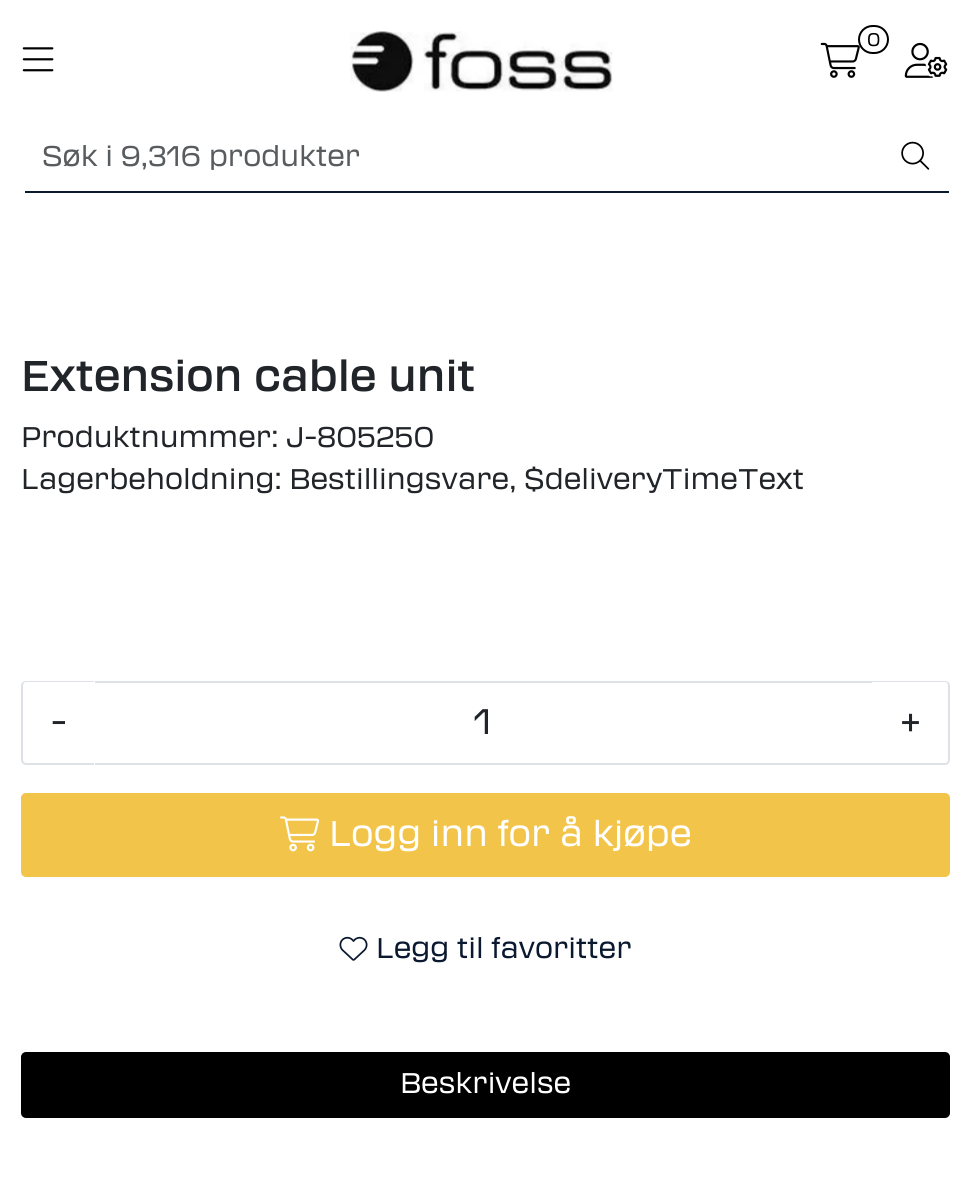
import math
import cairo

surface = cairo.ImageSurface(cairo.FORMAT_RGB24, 970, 1202)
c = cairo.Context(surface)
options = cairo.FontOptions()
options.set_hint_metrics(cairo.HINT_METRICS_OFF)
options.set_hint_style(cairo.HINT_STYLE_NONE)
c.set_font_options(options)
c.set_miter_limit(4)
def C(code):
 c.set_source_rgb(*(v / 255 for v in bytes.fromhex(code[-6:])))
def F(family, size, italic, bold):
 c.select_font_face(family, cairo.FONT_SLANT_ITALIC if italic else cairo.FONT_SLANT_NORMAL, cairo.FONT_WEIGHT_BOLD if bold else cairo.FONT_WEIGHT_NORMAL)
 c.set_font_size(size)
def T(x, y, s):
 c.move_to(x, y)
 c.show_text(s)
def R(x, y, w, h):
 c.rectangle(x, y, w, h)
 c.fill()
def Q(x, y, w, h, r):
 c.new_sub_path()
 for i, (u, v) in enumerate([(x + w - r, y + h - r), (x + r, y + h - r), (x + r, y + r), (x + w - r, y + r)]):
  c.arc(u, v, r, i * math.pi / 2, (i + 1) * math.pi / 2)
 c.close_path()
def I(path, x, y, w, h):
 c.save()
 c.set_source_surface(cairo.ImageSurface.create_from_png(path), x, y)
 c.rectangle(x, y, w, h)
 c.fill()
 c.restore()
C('ffffff')
c.paint()
I('1.png',350,31,263,61)
I('2.png',820,42,40,36)
C('ffffff')
Q(859,26,29,27,13.5)
c.fill_preserve()
C('000000')
c.stroke()
F('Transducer',18,0,0)
T(867,46,'0')
I('3.png',904,42,44,36)
I('4.png',22,47,32,25)
C('0a192f')
R(25,191,857,2)
F('Transducer',28,0,0)
C('595c5f')
T(42,166,'Søk i 9,316 produkter')
C('ffffff')
c.new_path()
c.move_to(880,123)
c.line_to(945,123)
c.curve_to(948,123,950,125,950,128)
c.line_to(950,188)
c.curve_to(950,191,948,193,945,193)
c.line_to(880,193)
c.close_path()
c.fill()
C('0a192f')
R(880,191,69,2)
I('5.png',901,141,29,29)
F('Transducer Medium',42.25,0,0)
C('212529')
T(21,391,'Extension cable unit')
F('Transducer',28,0,0)
T(21,447,'Produktnummer: J-805250')
T(21,489,'Lagerbeholdning: Bestillingsvare, $deliveryTimeText')
C('dee2e6')
R(93,681,780,2)
R(93,763,780,2)
C('ffffff')
c.new_path()
c.move_to(26,681)
c.line_to(95,681)
c.line_to(95,765)
c.line_to(26,765)
c.curve_to(23,765,21,763,21,760)
c.line_to(21,686)
c.curve_to(21,683,23,681,26,681)
c.close_path()
c.fill()
C('dee2e6')
c.set_fill_rule(cairo.FILL_RULE_EVEN_ODD)
c.new_path()
c.move_to(26,681)
c.line_to(94,681)
c.line_to(94,765)
c.line_to(26,765)
c.curve_to(23,765,21,762,21,760)
c.line_to(21,686)
c.curve_to(21,683,23,681,26,681)
c.close_path()
c.move_to(26,682)
c.line_to(94,682)
c.line_to(94,763)
c.line_to(26,763)
c.curve_to(24,763,23,761,23,760)
c.line_to(23,686)
c.curve_to(23,684,24,682,26,682)
c.close_path()
c.fill()
F('Transducer',35,0,0)
C('212529')
T(51,734,'-')
T(474,734,'1')
C('ffffff')
c.new_path()
c.move_to(872,681)
c.line_to(945,681)
c.curve_to(948,681,950,683,950,686)
c.line_to(950,760)
c.curve_to(950,763,948,765,945,765)
c.line_to(872,765)
c.close_path()
c.fill()
C('dee2e6')
c.new_path()
c.move_to(872,681)
c.line_to(945,681)
c.curve_to(948,681,950,683,950,686)
c.line_to(950,760)
c.curve_to(950,762,948,765,945,765)
c.line_to(872,765)
c.close_path()
c.move_to(872,682)
c.line_to(945,682)
c.curve_to(947,682,948,684,948,686)
c.line_to(948,760)
c.curve_to(948,761,947,763,945,763)
c.line_to(872,763)
c.close_path()
c.fill()
C('212529')
T(900,734,'+')
C('f2c449')
Q(22,794,927,82,4)
c.fill_preserve()
c.stroke()
I('6.png',280,816,40,36)
C('ffffff')
T(329,846,'Logg inn for å kjøpe')
I('7.png',339,936,29,25)
F('Transducer',28,0,0)
C('0a192f')
T(376,958,'Legg til favoritter')
C('000000')
Q(22,1053,927,64,4)
c.fill_preserve()
c.stroke()
C('ffffff')
T(400,1093,'Beskrivelse')
surface.write_to_png('o.png')
